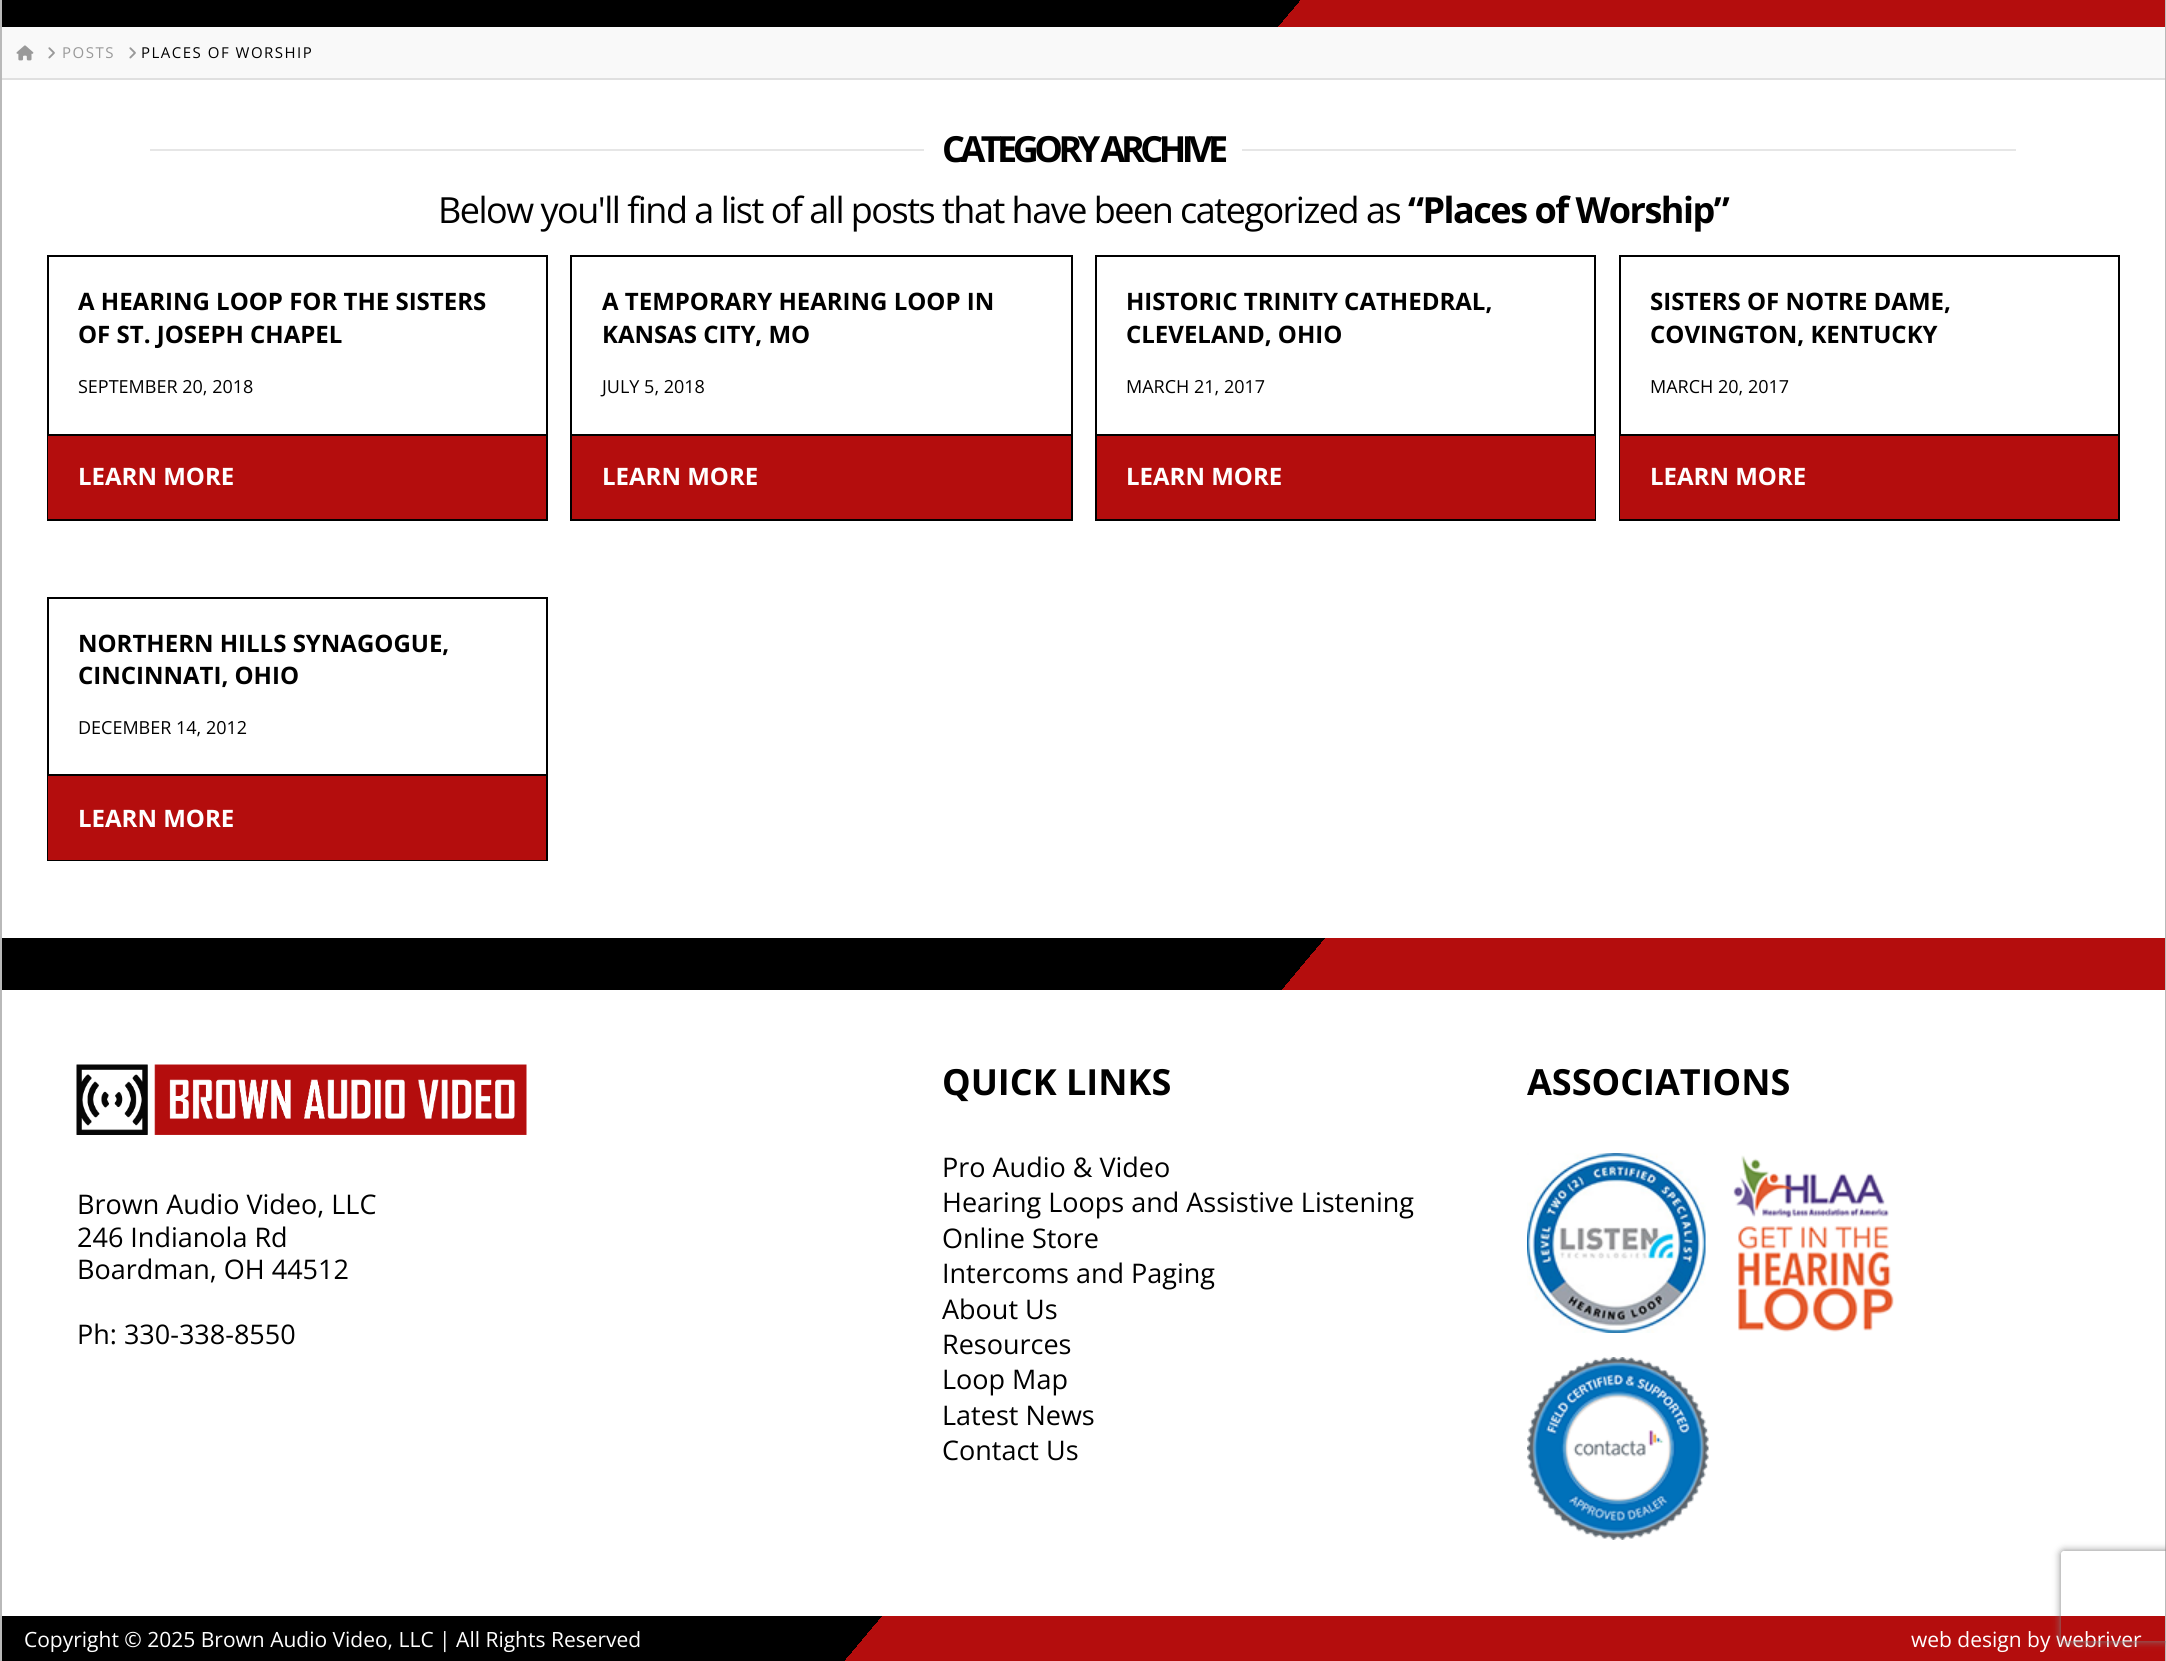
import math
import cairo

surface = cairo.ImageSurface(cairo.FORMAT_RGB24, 2166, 1661)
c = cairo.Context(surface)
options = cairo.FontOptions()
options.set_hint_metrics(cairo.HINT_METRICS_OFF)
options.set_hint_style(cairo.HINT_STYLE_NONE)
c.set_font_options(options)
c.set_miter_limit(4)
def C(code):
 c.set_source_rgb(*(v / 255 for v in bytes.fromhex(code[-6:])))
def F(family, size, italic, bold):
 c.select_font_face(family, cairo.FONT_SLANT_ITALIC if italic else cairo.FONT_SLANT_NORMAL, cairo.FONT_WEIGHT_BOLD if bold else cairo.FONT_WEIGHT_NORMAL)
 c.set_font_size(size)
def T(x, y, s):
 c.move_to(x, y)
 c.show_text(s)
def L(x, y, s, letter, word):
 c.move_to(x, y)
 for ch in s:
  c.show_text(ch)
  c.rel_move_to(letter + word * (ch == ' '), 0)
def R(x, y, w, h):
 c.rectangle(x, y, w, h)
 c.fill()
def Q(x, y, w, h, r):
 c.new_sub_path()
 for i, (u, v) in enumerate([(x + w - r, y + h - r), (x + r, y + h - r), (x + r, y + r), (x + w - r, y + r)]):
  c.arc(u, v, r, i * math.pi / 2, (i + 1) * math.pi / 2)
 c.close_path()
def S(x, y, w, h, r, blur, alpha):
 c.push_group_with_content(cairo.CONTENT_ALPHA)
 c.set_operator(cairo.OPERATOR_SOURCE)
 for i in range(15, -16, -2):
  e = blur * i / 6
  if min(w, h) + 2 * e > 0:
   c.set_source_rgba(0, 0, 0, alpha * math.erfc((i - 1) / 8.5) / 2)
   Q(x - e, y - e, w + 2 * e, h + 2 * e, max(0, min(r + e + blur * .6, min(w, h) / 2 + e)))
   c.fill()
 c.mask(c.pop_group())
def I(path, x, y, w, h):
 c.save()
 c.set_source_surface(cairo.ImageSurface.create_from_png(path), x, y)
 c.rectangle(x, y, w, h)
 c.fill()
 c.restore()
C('ffffff')
c.paint()
C('b9b9b9')
R(2165,0,1,1661)
R(0,0,2,1661)
gradient = cairo.LinearGradient(432,-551,1734,541)
gradient.add_color_stop_rgba(0,0,0,0,1)
gradient.add_color_stop_rgba(.6,0,0,0,1)
gradient.add_color_stop_rgba(.6,0.706,0.051,0.051,1)
gradient.add_color_stop_rgba(1,0.706,0.051,0.051,1)
c.set_source(gradient)
R(2,0,2163,27)
C('f9f9f9')
R(2,27,2163,51)
C('e0e0e0')
R(2,78,2163,2)
I('1.png',16,45,18,16)
I('2.png',48,47,7,12)
F('Open Sans',15,0,0)
C('999999')
L(62,58,'POSTS',1.5,0)
I('2.png',129,47,7,12)
C('000000')
L(141,58,'PLACES OF WORSHIP',1.5,0)
C('e6e6e6')
R(150,149,774,2)
F('Open Sans',36,0,1)
C('000000')
L(942,162,'CATEGORY ARCHIVE',-4.5,0)
C('e6e6e6')
R(1242,149,774,2)
F('Open Sans',36,0,0)
C('000000')
L(438,223,'Below you\'ll find a list of all posts that have been categorized as',-1.5,0)
F('Open Sans',36,0,1)
L(1408,223,'“Places of Worship”',-1.5,0)
c.rectangle(48,256,499,264)
c.stroke()
F('Open Sans',24,0,1)
T(78,310,'A HEARING LOOP FOR THE SISTERS')
T(78,343,'OF ST. JOSEPH CHAPEL')
F('Open Sans',18,0,0)
T(78,393,'SEPTEMBER 20, 2018')
C('b40d0d')
R(48,436,498,83)
C('000000')
R(48,434,498,2)
F('Open Sans',24,0,1)
C('ffffff')
T(78,485,'LEARN MORE')
c.rectangle(571,256,501,264)
C('000000')
c.stroke()
T(602,310,'A TEMPORARY HEARING LOOP IN')
T(602,343,'KANSAS CITY, MO')
F('Open Sans',18,0,0)
T(602,393,'JULY 5, 2018')
C('b40d0d')
R(572,436,499,83)
C('000000')
R(572,434,499,2)
F('Open Sans',24,0,1)
C('ffffff')
T(602,485,'LEARN MORE')
c.rectangle(1096,256,499,264)
C('000000')
c.stroke()
T(1126,310,'HISTORIC TRINITY CATHEDRAL,')
T(1126,343,'CLEVELAND, OHIO')
F('Open Sans',18,0,0)
T(1126,393,'MARCH 21, 2017')
C('b40d0d')
R(1097,436,498,83)
C('000000')
R(1097,434,498,2)
F('Open Sans',24,0,1)
C('ffffff')
T(1126,485,'LEARN MORE')
c.rectangle(1620,256,499,264)
C('000000')
c.stroke()
T(1650,310,'SISTERS OF NOTRE DAME,')
T(1650,343,'COVINGTON, KENTUCKY')
F('Open Sans',18,0,0)
T(1650,393,'MARCH 20, 2017')
C('b40d0d')
R(1620,436,498,83)
C('000000')
R(1620,434,498,2)
F('Open Sans',24,0,1)
C('ffffff')
T(1650,485,'LEARN MORE')
c.rectangle(48,598,499,262)
C('000000')
c.stroke()
T(78,652,'NORTHERN HILLS SYNAGOGUE,')
T(78,684,'CINCINNATI, OHIO')
F('Open Sans',18,0,0)
T(78,734,'DECEMBER 14, 2012')
C('b40d0d')
R(48,776,498,84)
C('000000')
R(48,774,498,2)
F('Open Sans',24,0,1)
C('ffffff')
T(78,827,'LEARN MORE')
gradient = cairo.LinearGradient(435,420,1731,1507)
gradient.add_color_stop_rgba(0,0,0,0,1)
gradient.add_color_stop_rgba(.6,0,0,0,1)
gradient.add_color_stop_rgba(.6,0.706,0.051,0.051,1)
gradient.add_color_stop_rgba(1,0.706,0.051,0.051,1)
c.set_source(gradient)
R(2,938,2163,52)
F('Open Sans',36,0,1)
C('000000')
T(942,1095,'QUICK LINKS')
F('Open Sans',27,0,0)
T(942,1177,'Pro Audio & Video')
T(942,1212,'Hearing Loops and Assistive Listening')
T(942,1248,'Online Store')
T(942,1283,'Intercoms and Paging')
T(942,1319,'About Us')
T(942,1354,'Resources')
T(942,1389,'Loop Map')
T(942,1425,'Latest News')
T(942,1460,'Contact Us')
F('Open Sans',36,0,1)
T(1527,1095,'ASSOCIATIONS')
I('3.png',1527,1153,179,180)
I('4.png',1733,1155,161,177)
I('5.png',1527,1357,182,183)
I('6.png',76,1064,451,71)
F('Open Sans',27,0,0)
T(77,1214,'Brown Audio Video, LLC')
T(77,1247,'246 Indianola Rd')
T(77,1279,'Boardman, OH 44512')
T(77,1344,'Ph: 330-338-8550')
gradient = cairo.LinearGradient(437,1097,1729,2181)
gradient.add_color_stop_rgba(0,0,0,0,1)
gradient.add_color_stop_rgba(.4,0,0,0,1)
gradient.add_color_stop_rgba(.4,0.706,0.051,0.051,1)
gradient.add_color_stop_rgba(1,0.706,0.051,0.051,1)
c.set_source(gradient)
R(2,1616,2163,45)
F('Open Sans',21,0,0)
C('ffffff')
T(24,1647,'Copyright © 2025 Brown Audio Video, LLC | All Rights Reserved')
T(1911,1647,'web design by webriver')
c.save()
c.set_fill_rule(cairo.FILL_RULE_EVEN_ODD)
c.new_path()
c.move_to(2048,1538)
c.line_to(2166,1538)
c.line_to(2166,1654)
c.line_to(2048,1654)
c.close_path()
c.move_to(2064,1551)
c.line_to(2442,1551)
c.curve_to(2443.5,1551,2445,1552.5,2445,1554)
c.line_to(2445,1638)
c.curve_to(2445,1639.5,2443.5,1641,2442,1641)
c.line_to(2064,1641)
c.curve_to(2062.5,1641,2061,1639.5,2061,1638)
c.line_to(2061,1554)
c.curve_to(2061,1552.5,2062.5,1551,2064,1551)
c.close_path()
c.clip()
C('808080')
S(2061,1551,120,90,3,4,1)
c.restore()
surface.write_to_png('o.png')
